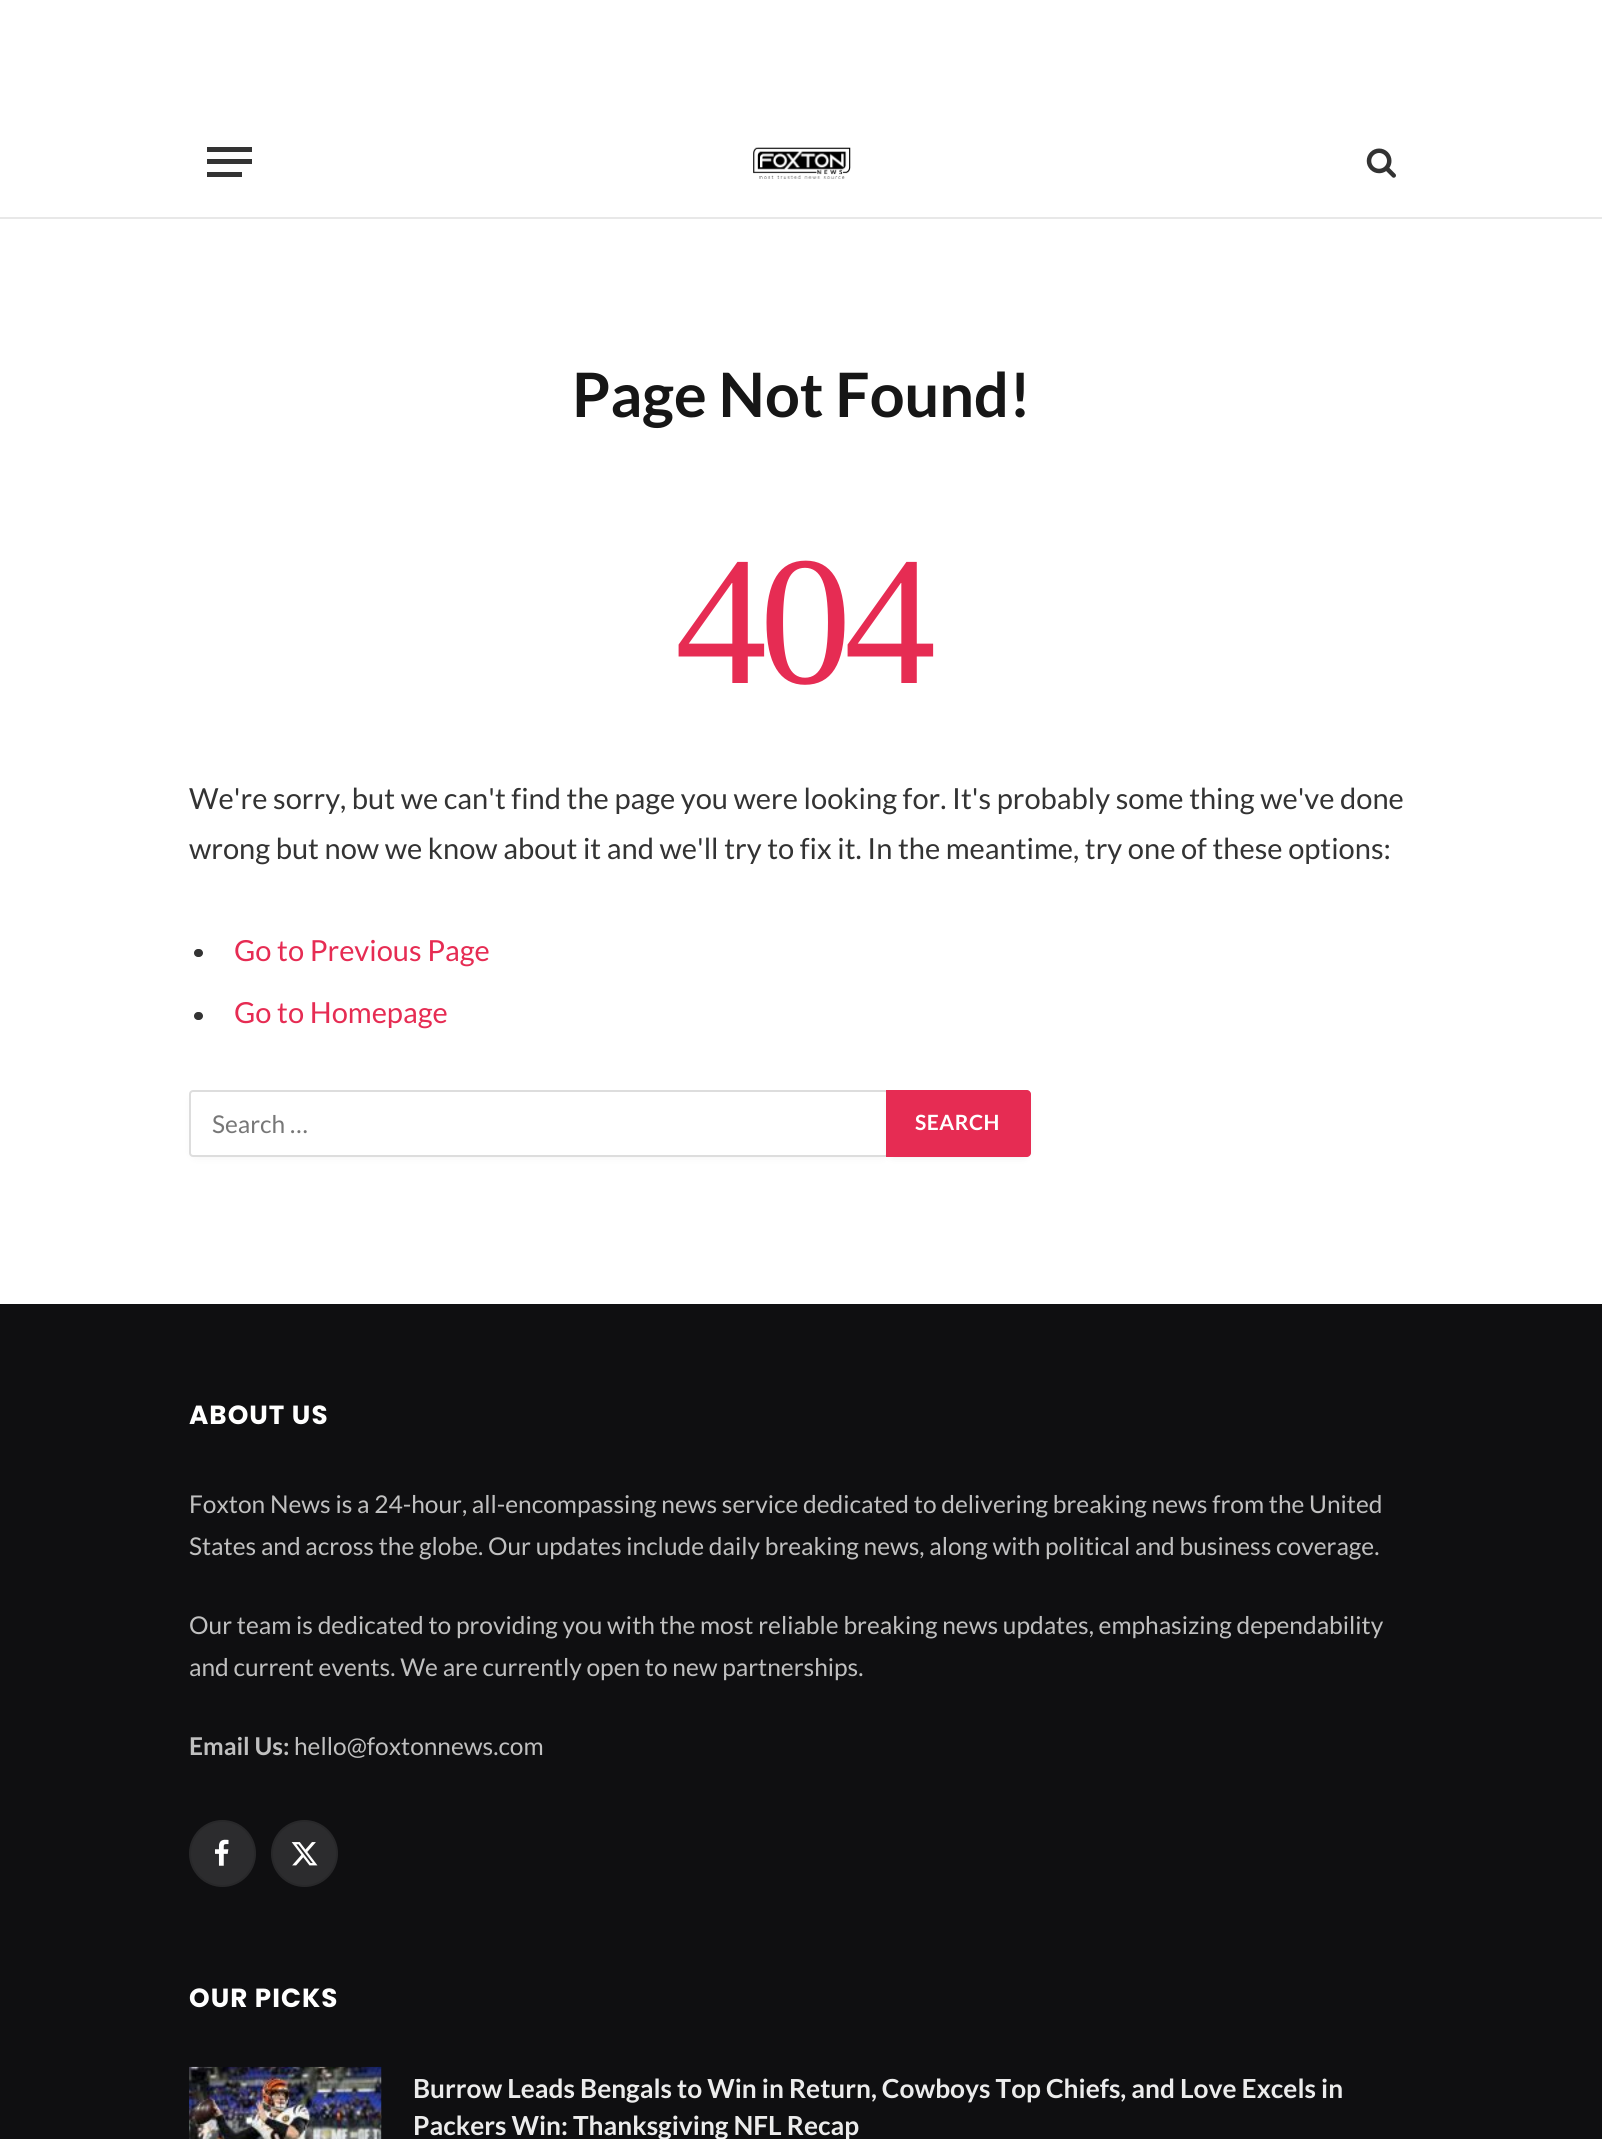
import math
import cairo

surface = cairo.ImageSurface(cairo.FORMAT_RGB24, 1602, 2139)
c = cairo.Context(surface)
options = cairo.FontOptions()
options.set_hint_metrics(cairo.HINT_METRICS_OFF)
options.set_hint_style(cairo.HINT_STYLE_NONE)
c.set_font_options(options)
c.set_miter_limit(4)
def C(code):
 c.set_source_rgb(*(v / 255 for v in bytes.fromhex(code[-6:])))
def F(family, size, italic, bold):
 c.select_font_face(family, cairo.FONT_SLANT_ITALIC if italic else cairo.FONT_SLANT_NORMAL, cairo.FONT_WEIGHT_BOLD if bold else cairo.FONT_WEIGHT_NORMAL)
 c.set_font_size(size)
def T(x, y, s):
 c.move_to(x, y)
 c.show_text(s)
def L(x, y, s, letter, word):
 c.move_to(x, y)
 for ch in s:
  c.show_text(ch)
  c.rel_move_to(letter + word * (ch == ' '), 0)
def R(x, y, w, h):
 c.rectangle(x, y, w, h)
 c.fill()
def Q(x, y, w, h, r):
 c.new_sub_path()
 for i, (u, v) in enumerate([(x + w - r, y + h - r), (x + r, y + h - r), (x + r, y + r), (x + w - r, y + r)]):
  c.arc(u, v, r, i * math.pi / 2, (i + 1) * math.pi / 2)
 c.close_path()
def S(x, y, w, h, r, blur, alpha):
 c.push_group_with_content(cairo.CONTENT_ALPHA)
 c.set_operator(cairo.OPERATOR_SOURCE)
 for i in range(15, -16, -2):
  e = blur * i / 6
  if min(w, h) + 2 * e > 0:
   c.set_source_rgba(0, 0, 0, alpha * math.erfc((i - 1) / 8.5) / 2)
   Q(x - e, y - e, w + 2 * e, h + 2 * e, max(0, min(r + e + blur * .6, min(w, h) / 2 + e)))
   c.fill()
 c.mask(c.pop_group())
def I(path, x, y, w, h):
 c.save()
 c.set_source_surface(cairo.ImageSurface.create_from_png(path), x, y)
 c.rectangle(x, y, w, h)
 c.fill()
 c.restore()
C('ffffff')
c.paint()
C('e8e8e8')
R(0,217,1602,2)
C('333333')
R(207,172,35,5)
R(207,147,45,5)
R(207,159,45,5)
I('1.png',753,147,98,32)
I('2.png',1366,148,30,30)
F('Lato',61.25,0,1)
C('161616')
T(572,417,'Page Not Found!')
F('Liberation Serif',184,0,0)
C('e62c53')
L(675,683,'404',-7.5,0)
F('Lato',29.05,0,0)
C('333333')
T(189,809,'We\'re sorry, but we can\'t find the page you were looking for. It\'s probably some thing we\'ve done')
T(189,859,'wrong but now we know about it and we\'ll try to fix it. In the meantime, try one of these options:')
Q(194,949,9,8,4)
c.fill()
C('e62c53')
T(234,961,'Go to Previous Page')
C('333333')
Q(194,1012,9,8,4)
c.fill()
C('e62c53')
T(234,1023,'Go to Homepage')
C('000000')
S(196,1101,686,52,0,6,.1)
C('ffffff')
Q(190,1091,698,65,3)
c.fill_preserve()
C('dddddd')
c.stroke()
F('Lato',24.5,0,0)
C('777777')
T(212,1133,'Search …')
C('000000')
S(893,1101,131,52,0,6,.16)
C('e62c53')
c.new_path()
c.move_to(886,1090)
c.line_to(1027,1090)
c.curve_to(1029,1090,1031,1092,1031,1094)
c.line_to(1031,1153)
c.curve_to(1031,1155,1029,1157,1027,1157)
c.line_to(886,1157)
c.close_path()
c.fill()
F('Lato',21,0,1)
C('ffffff')
L(915,1130,'SEARCH',.5,0)
C('0f0f11')
R(0,1304,1602,835)
F('Poppins',26.25,0,1)
C('ffffff')
L(189,1424,'ABOUT US',1,0)
F('Lato',24.5,0,0)
C('c0c0c0')
T(189,1513,'Foxton News is a 24-hour, all-encompassing news service dedicated to delivering breaking news from the United')
T(189,1555,'States and across the globe. Our updates include daily breaking news, along with political and business coverage.')
T(189,1634,'Our team is dedicated to providing you with the most reliable breaking news updates, emphasizing dependability')
T(189,1676,'and current events. We are currently open to new partnerships.')
F('Lato',24.5,0,1)
T(189,1755,'Email Us:')
F('Lato',24.5,0,0)
T(294,1755,'hello@foxtonnews.com')
C('2c2c2e')
c.new_path()
c.arc(222.5,1853.5,33.5,0,2 * math.pi)
c.fill()
c.arc(222.5,1853.5,32.5,0,2 * math.pi)
c.set_source_rgba(0,0,0,0.09)
c.stroke()
I('3.png',215,1839,14,27)
C('2c2c2e')
c.arc(304.5,1853.5,33.5,0,2 * math.pi)
c.fill()
c.arc(304.5,1853.5,32.5,0,2 * math.pi)
c.set_source_rgba(0,0,0,0.09)
c.stroke()
I('4.png',291,1842,27,24)
F('Poppins',26.25,0,1)
C('ffffff')
L(189,2007,'OUR PICKS',1,0)
I('5.png',189,2066,193,73)
F('Lato',26.25,0,1)
C('ececec')
T(413,2098,'Burrow Leads Bengals to Win in Return, Cowboys Top Chiefs, and Love Excels in')
T(413,2135,'Packers Win: Thanksgiving NFL Recap')
surface.write_to_png('o.png')
